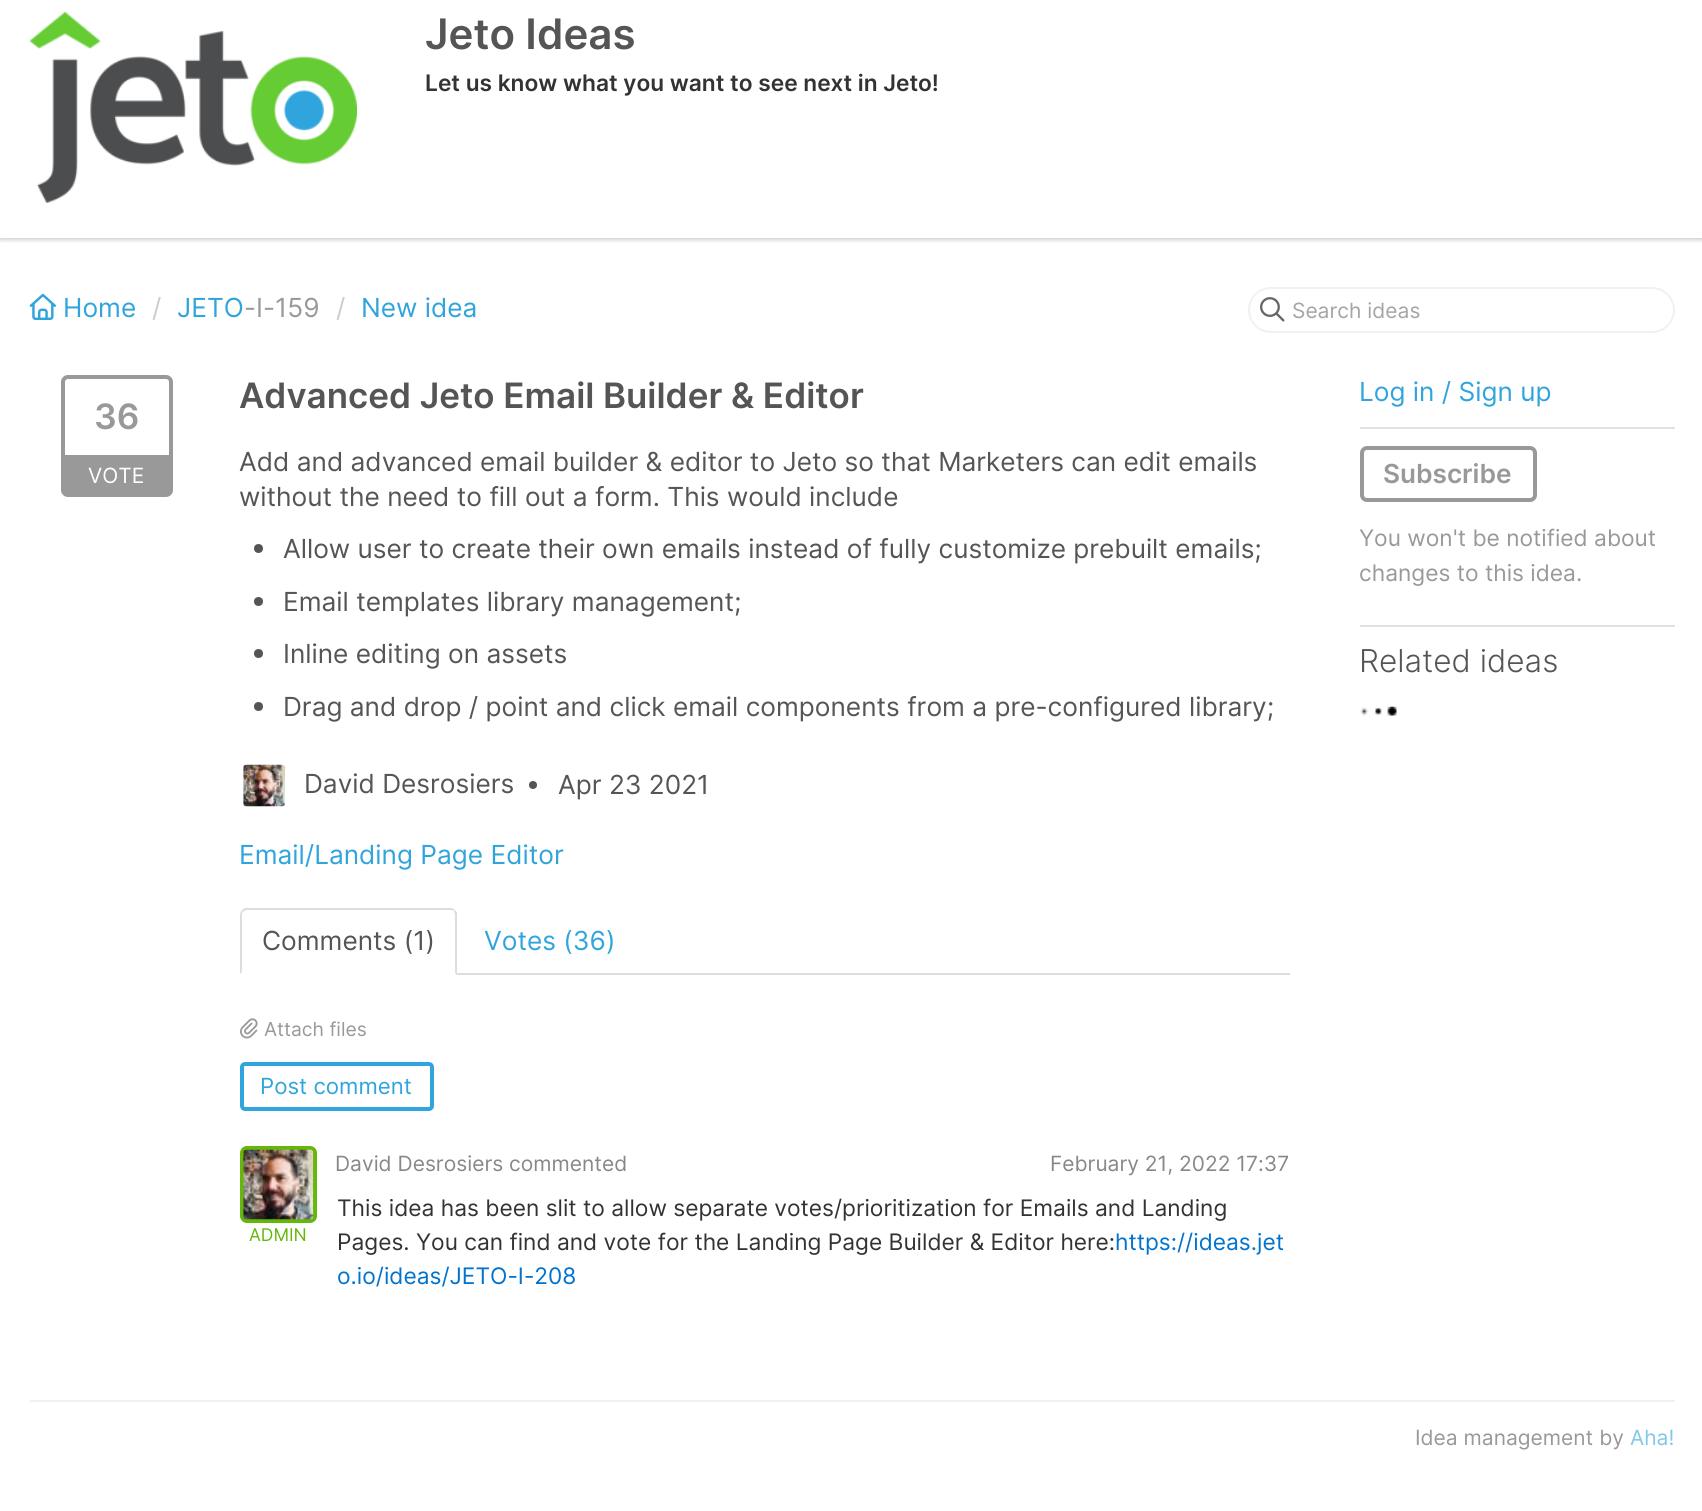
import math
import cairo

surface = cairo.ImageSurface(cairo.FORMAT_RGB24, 1702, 1511)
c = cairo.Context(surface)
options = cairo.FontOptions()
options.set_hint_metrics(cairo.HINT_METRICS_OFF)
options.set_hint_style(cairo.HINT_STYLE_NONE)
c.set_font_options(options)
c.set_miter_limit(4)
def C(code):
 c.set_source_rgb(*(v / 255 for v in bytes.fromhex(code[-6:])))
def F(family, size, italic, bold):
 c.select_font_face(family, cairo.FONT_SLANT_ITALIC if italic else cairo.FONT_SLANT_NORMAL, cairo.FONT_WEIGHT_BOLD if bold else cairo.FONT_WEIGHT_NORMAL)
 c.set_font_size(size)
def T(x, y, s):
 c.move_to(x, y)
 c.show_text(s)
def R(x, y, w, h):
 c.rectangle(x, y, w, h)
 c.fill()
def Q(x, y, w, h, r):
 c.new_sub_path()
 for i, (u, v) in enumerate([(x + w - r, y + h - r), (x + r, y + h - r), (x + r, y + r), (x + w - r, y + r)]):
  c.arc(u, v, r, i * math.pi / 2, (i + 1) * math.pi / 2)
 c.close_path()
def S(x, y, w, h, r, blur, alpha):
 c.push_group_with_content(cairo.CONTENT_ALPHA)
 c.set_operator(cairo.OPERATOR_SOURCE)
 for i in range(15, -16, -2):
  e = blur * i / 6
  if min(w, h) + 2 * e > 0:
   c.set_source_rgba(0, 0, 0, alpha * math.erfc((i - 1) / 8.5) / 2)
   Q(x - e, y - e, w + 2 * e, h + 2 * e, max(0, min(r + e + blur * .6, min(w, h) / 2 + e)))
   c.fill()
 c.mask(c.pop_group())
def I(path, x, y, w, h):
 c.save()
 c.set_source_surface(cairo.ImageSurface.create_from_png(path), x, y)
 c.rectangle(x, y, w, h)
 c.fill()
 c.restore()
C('ffffff')
c.paint()
c.save()
c.rectangle(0,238,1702,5)
c.clip()
C('000000')
S(0,-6,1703,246,0,2,.2)
c.restore()
I('1.png',29,12,328,191)
F('Inter SemiBold',42,0,0)
C('555555')
T(425,49,'Jeto Ideas')
F('Inter SemiBold',22.75,0,0)
C('333333')
T(425,91,'Let us know what you want to see next in Jeto!')
I('2.png',29,293,27,27)
F('Inter',26.25,0,0)
C('30a4dc')
T(63,317,'Home')
C('cccccc')
T(152,317,'/')
C('30a4dc')
T(177,317,'JETO')
C('999999')
T(244,317,'-I-159')
C('cccccc')
T(336,317,'/')
C('30a4dc')
T(361,317,'New idea')
Q(1249,288,425,44,22)
C('f1f1f1')
c.stroke()
I('3.png',1260,297,25,25)
F('Inter',21,0,0)
C('a5a5a5')
T(1292,318,'Search ideas')
Q(63,377,108,118,5)
C('999999')
c.set_line_width(4)
c.stroke()
F('Inter SemiBold',35,0,0)
T(94,429,'36')
R(65,455,104,38)
F('Inter',21,0,0)
C('ffffff')
T(88,483,'VOTE')
F('Inter SemiBold',35,0,0)
C('555555')
T(239,408,'Advanced Jeto Email Builder & Editor')
F('Inter',26.25,0,0)
T(239,471,'Add and advanced email builder & editor to Jeto so that Marketers can edit emails')
T(239,506,'without the need to fill out a form. This would include')
c.new_path()
c.arc(258.5,548.5,4.5,0,2 * math.pi)
c.fill()
T(283,558,'Allow user to create their own emails instead of fully customize prebuilt emails;')
c.new_path()
c.arc(258.5,601.5,4.5,0,2 * math.pi)
c.fill()
T(283,611,'Email templates library management;')
c.new_path()
c.arc(258.5,653.5,4.5,0,2 * math.pi)
c.fill()
T(283,663,'Inline editing on assets')
c.new_path()
c.arc(258.5,706.5,4.5,0,2 * math.pi)
c.fill()
T(283,716,'Drag and drop / point and click email components from a pre-configured library;')
I('4.png',243,764,43,43)
T(304,793,'David Desrosiers')
c.new_path()
c.arc(533,785,4,0,2 * math.pi)
c.fill()
T(558,794,'Apr 23 2021')
C('30a4dc')
T(239,864,'Email/Landing Page Editor')
C('dddddd')
R(457,973,833,2)
c.new_path()
c.move_to(247,910)
c.curve_to(245,910,244,911,243,912)
c.line_to(242,910)
c.line_to(245,908)
c.line_to(452,908)
c.line_to(455,910)
c.line_to(454,911)
c.curve_to(453,910,452,910,450,910)
c.close_path()
c.fill()
c.new_path()
c.move_to(455,910)
c.line_to(457,913)
c.line_to(457,975)
c.line_to(455,973)
c.line_to(455,915)
c.curve_to(455,914,454,912,454,911)
c.close_path()
c.fill()
c.new_path()
c.move_to(240,974)
c.line_to(240,915)
c.curve_to(240,913,241,911,242,910)
c.line_to(243,912)
c.curve_to(242,912,242,914,242,915)
c.line_to(242,972)
c.close_path()
c.fill()
C('555555')
T(262,950,'Comments (1)')
C('30a4dc')
T(484,950,'Votes (36)')
I('5.png',240,1018,18,21)
F('Inter',19.25,0,0)
C('999999')
T(264,1036,'Attach files')
Q(242,1064,190,45,3)
C('30a4dc')
c.stroke()
F('Inter',22.25,0,0)
T(260,1094,'Post comment')
Q(242,1148,73,73,5)
C('64b80a')
c.stroke()
I('6.png',243,1149,71,71)
F('Inter',17.5,0,0)
T(249,1241,'ADMIN')
F('Inter',21,0,0)
C('888888')
T(335,1171,'David Desrosiers commented')
T(1050,1171,'February 21, 2022 17:37')
F('Inter',22.75,0,0)
C('333333')
T(337,1216,'This idea has been slit to allow separate votes/prioritization for Emails and Landing')
T(337,1250,'Pages. You can find and vote for the Landing Page Builder & Editor here:')
C('0073cf')
T(1115,1250,'https://ideas.jet')
T(337,1284,'o.io/ideas/JETO-I-208')
C('e1e1e1')
R(1360,427,315,2)
F('Inter',26.25,0,0)
C('30a4dc')
T(1359,401,'Log in / Sign up')
C('e1e1e1')
R(1360,625,315,2)
Q(1362,448,173,52,5)
C('999999')
c.stroke()
F('Inter SemiBold',26.25,0,0)
T(1383,483,'Subscribe')
F('Inter',22.75,0,0)
T(1359,546,'You won\'t be notified about')
T(1359,581,'changes to this idea.')
F('Inter Light',31.5,0,0)
C('555555')
T(1359,672,'Related ideas')
I('7.png',1360,706,37,10)
C('f1f1f1')
R(30,1400,1645,2)
F('Inter',21,0,0)
C('999999')
T(1415,1445,'Idea management by')
C('83c8ea')
T(1630,1445,'Aha!')
surface.write_to_png('o.png')
